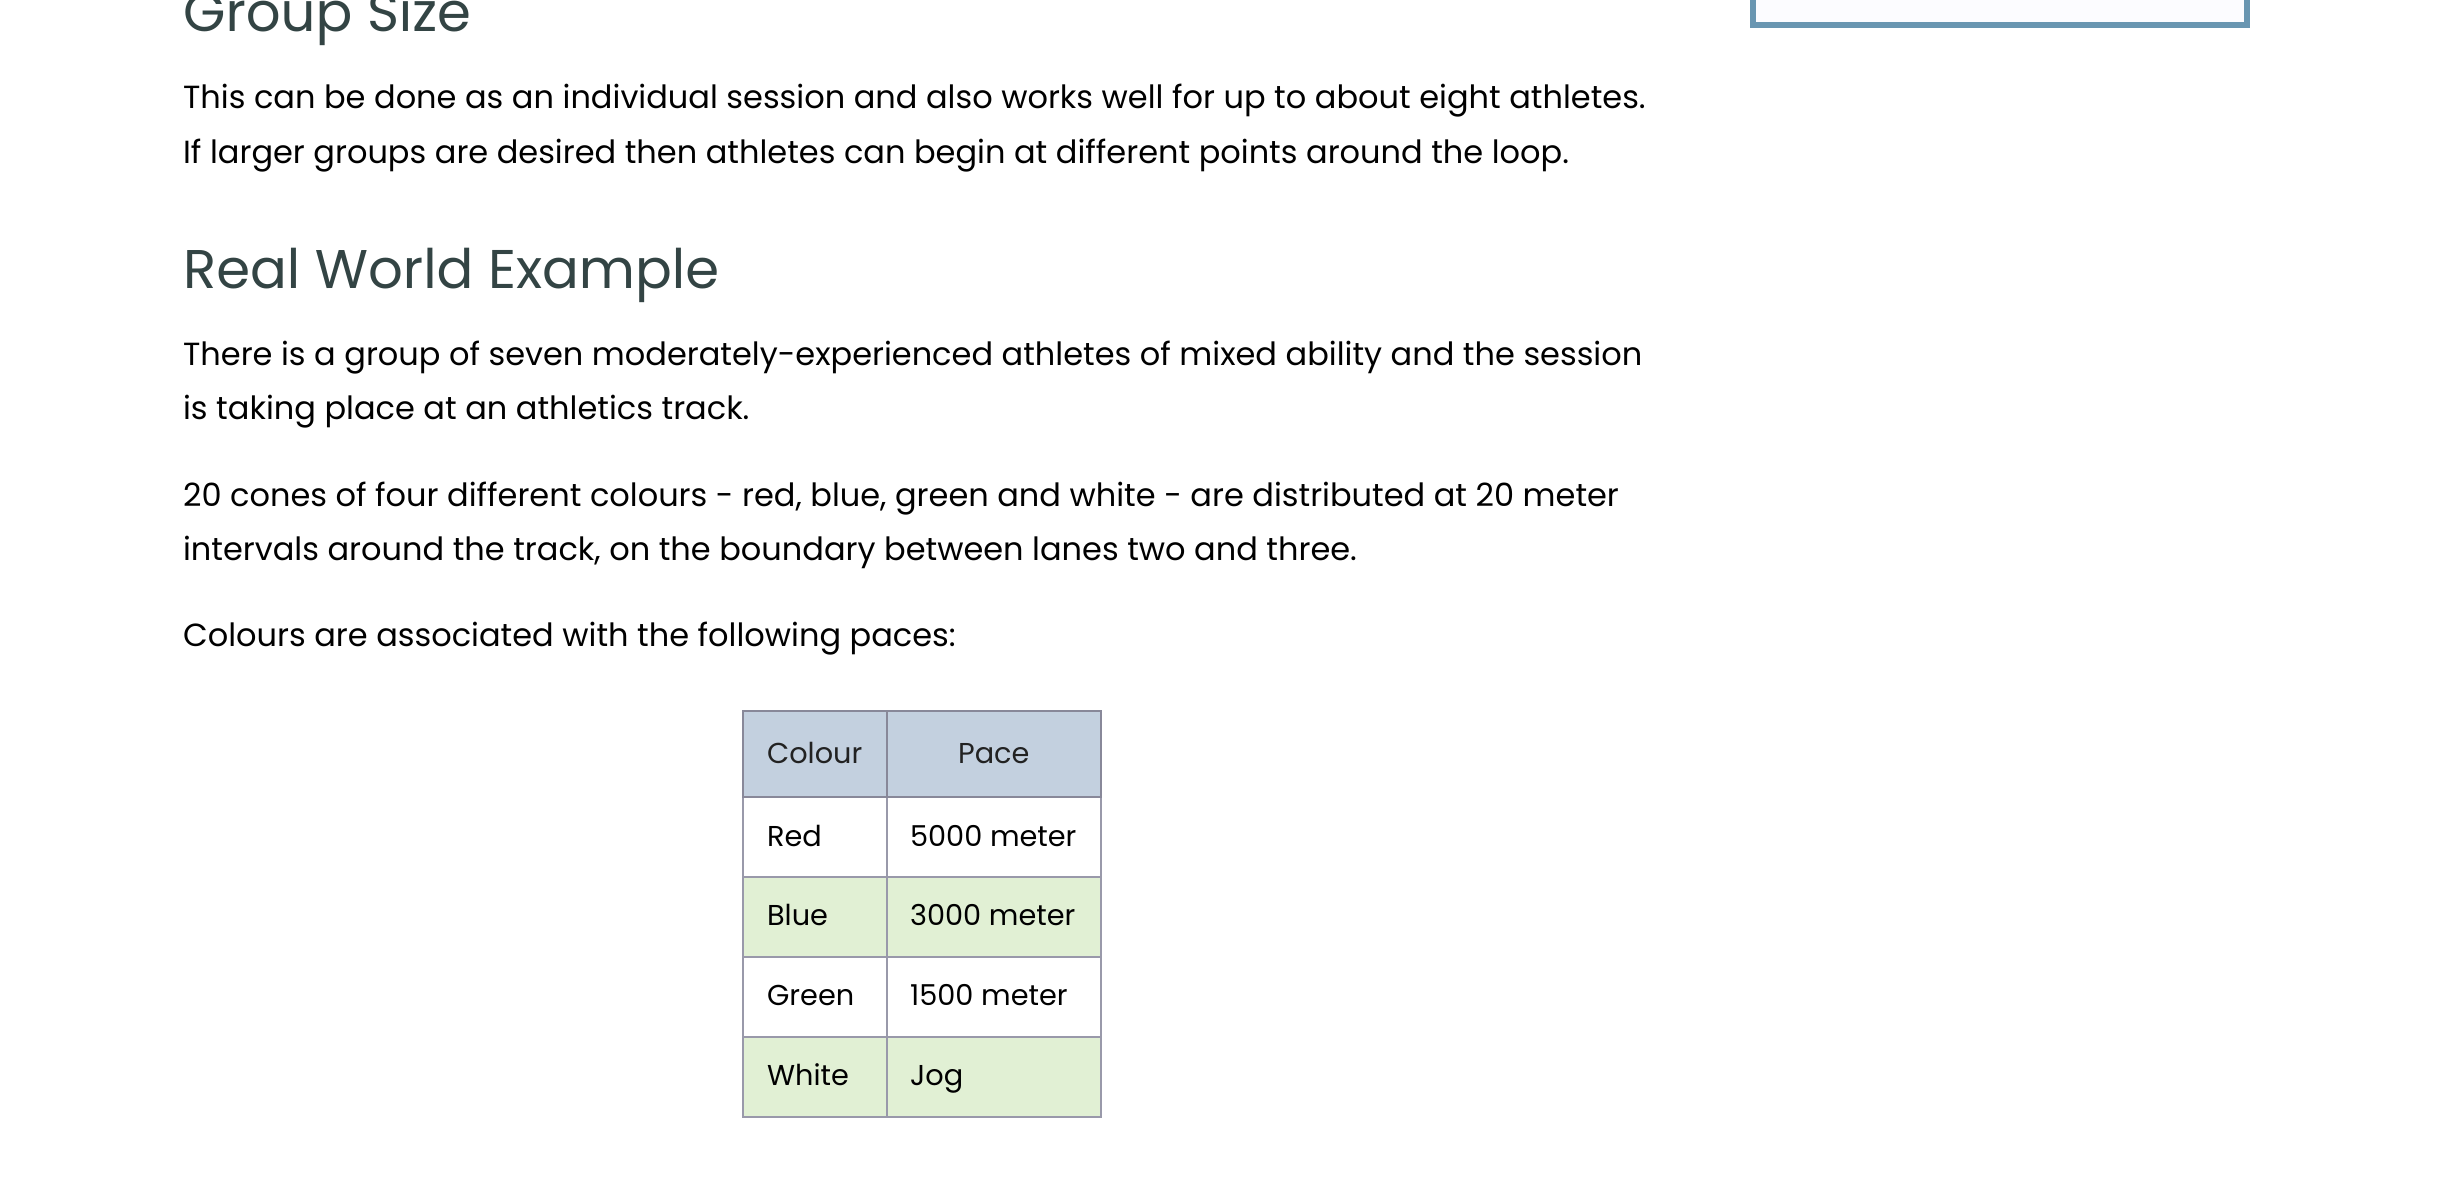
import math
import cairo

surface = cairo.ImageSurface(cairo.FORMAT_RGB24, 2464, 1190)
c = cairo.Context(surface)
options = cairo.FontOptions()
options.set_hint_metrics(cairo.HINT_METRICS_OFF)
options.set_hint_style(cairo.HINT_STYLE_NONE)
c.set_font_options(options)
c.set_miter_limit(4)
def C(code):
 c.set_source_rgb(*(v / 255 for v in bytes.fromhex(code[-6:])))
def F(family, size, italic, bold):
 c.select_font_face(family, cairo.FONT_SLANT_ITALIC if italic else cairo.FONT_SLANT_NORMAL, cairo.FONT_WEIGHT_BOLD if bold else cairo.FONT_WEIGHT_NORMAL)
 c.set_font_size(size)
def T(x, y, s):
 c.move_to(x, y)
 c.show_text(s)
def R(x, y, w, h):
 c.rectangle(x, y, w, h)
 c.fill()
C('ffffff')
c.paint()
F('Poppins',54.5,0,0)
C('334444')
T(183,31,'Group Size')
F('Poppins',32,0,0)
C('000000')
T(183,108,'This can be done as an individual session and also works well for up to about eight athletes.')
T(183,163,'If larger groups are desired then athletes can begin at different points around the loop.')
F('Poppins',54.5,0,0)
C('334444')
T(183,288,'Real World Example')
F('Poppins',32,0,0)
C('000000')
T(183,365,'There is a group of seven moderately-experienced athletes of mixed ability and the session')
T(183,419,'is taking place at an athletics track.')
T(183,506,'20 cones of four different colours - red, blue, green and white - are distributed at 20 meter')
T(183,560,'intervals around the track, on the boundary between lanes two and three.')
T(183,646,'Colours are associated with the following paces:')
C('c3d0df')
R(744,712,142,84)
C('888899')
R(886,710,216,2)
C('9999aa')
R(886,876,216,2)
R(886,956,216,2)
R(886,1036,216,2)
R(1100,1036,2,82)
R(1100,956,2,82)
R(1100,796,2,162)
C('888899')
R(1100,710,2,88)
C('9999aa')
R(886,1116,216,2)
R(886,1036,2,82)
R(742,1036,146,2)
R(886,956,2,82)
R(742,956,146,2)
R(886,876,2,82)
R(742,876,146,2)
R(886,796,2,82)
C('888899')
R(886,796,216,2)
R(886,710,2,88)
R(742,710,146,2)
C('9999aa')
R(742,1116,146,2)
R(742,1036,2,82)
R(742,956,2,82)
R(742,796,2,162)
C('888899')
R(742,796,146,2)
R(742,710,2,88)
F('Poppins',28.75,0,0)
C('222222')
T(767,763,'Colour')
C('c3d0df')
R(888,712,212,84)
C('222222')
T(958,763,'Pace')
C('000000')
T(767,846,'Red')
T(910,846,'5000 meter')
C('e1f0d4')
R(744,878,142,78)
C('000000')
T(767,925,'Blue')
C('e1f0d4')
R(888,878,212,78)
C('000000')
T(910,925,'3000 meter')
T(767,1005,'Green')
T(910,1005,'1500 meter')
C('e1f0d4')
R(744,1038,142,78)
C('000000')
T(767,1085,'White')
C('e1f0d4')
R(888,1038,212,78)
C('000000')
T(910,1085,'Jog')
c.rectangle(1753,-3,494,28)
C('6996b1')
c.set_line_width(6)
c.stroke()
C('fcfcff')
R(1756,0,488,22)
surface.write_to_png('o.png')
